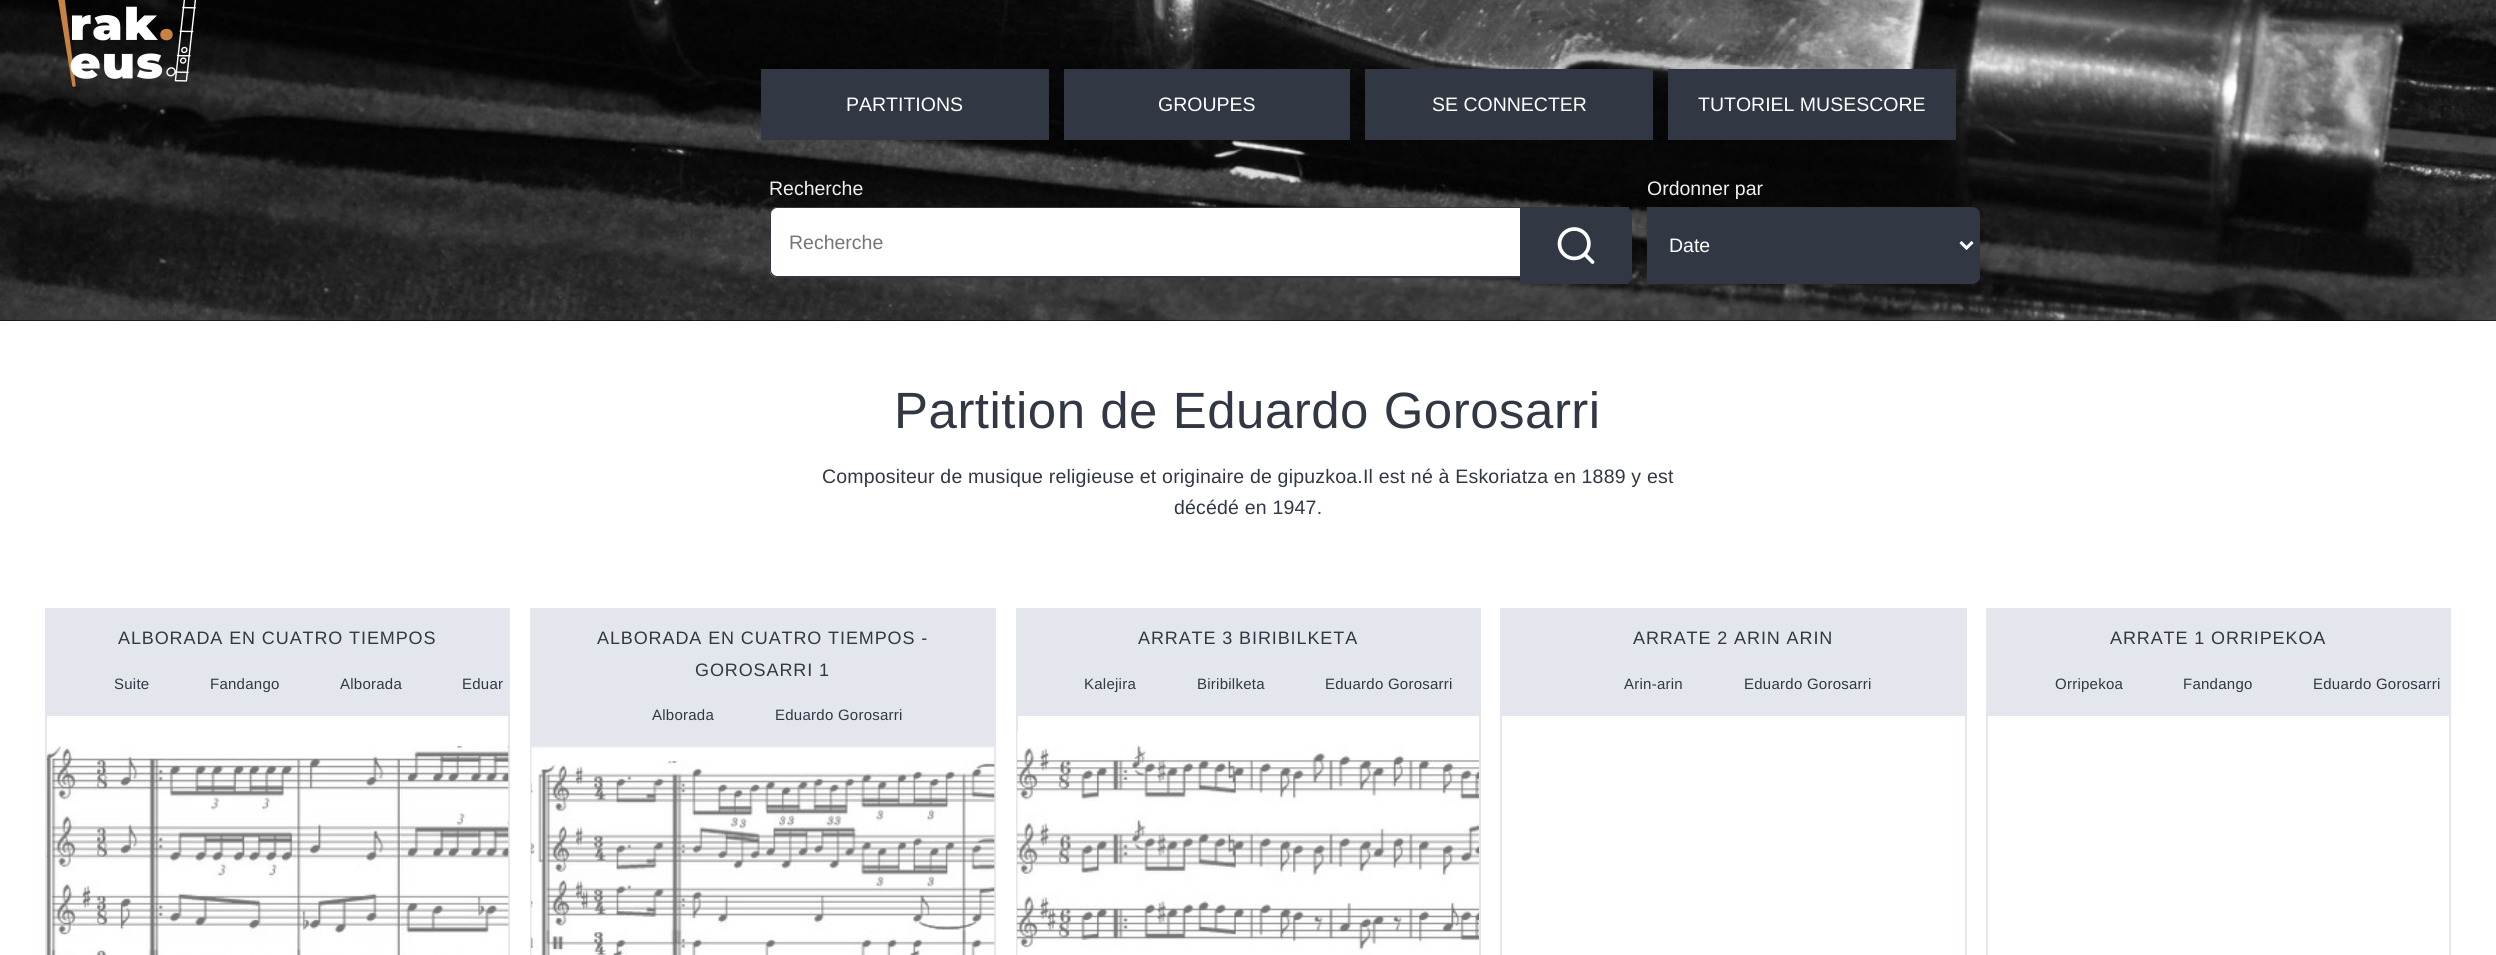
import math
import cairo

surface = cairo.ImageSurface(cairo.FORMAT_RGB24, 2496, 955)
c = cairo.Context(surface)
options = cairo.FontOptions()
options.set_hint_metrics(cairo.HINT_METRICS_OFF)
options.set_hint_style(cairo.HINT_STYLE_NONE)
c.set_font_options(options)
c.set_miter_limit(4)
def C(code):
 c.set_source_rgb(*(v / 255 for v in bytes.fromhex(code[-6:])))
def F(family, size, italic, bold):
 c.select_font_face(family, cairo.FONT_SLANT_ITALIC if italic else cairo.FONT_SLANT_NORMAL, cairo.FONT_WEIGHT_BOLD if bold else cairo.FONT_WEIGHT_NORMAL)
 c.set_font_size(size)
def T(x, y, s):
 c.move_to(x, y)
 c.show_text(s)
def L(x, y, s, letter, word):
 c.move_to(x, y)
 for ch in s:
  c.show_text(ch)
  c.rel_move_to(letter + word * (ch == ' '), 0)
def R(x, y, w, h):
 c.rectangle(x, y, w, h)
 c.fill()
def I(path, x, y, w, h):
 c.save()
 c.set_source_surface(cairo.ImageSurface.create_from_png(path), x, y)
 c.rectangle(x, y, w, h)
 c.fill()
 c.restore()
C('ffffff')
c.paint()
C('000000')
R(0,320,2496,1)
I('1.png',0,0,2496,321)
I('2.png',58,0,139,87)
C('313844')
R(761,69,288,71)
F('Liberation Sans',19.5,0,0)
C('ffffff')
T(846,111,'PARTITIONS')
C('313844')
R(1064,69,286,71)
C('ffffff')
T(1158,111,'GROUPES')
C('313844')
R(1365,69,288,71)
C('ffffff')
T(1432,111,'SE CONNECTER')
C('313844')
R(1668,69,288,71)
C('ffffff')
T(1698,111,'TUTORIEL MUSESCORE')
C('f0f0f0')
T(769,195,'Recherche')
C('ffffff')
c.new_path()
c.move_to(778,207)
c.line_to(1520,207)
c.line_to(1520,278)
c.line_to(778,278)
c.curve_to(773.5,278,770,274.5,770,270)
c.line_to(770,215)
c.curve_to(770,210.5,773.5,207,778,207)
c.close_path()
c.fill()
C('313844')
c.set_fill_rule(cairo.FILL_RULE_EVEN_ODD)
c.new_path()
c.move_to(777,207)
c.line_to(1520,207)
c.line_to(1520,278)
c.line_to(777,278)
c.curve_to(773,278,770,274,770,270)
c.line_to(770,214)
c.curve_to(770,210,773,207,777,207)
c.close_path()
c.move_to(777,208)
c.line_to(1520,208)
c.line_to(1520,276)
c.line_to(777,276)
c.curve_to(774,276,771,273,771,270)
c.line_to(771,214)
c.curve_to(771,211,774,208,777,208)
c.close_path()
c.fill()
C('757575')
T(789,249,'Recherche')
C('313844')
c.new_path()
c.move_to(1520,207)
c.line_to(1624,207)
c.curve_to(1628.5,207,1632,210.5,1632,215)
c.line_to(1632,276)
c.curve_to(1632,280.5,1628.5,284,1624,284)
c.line_to(1520,284)
c.close_path()
c.fill()
I('3.png',1557,227,38,37)
R(1624,207,5,2)
R(1625,282,4,2)
C('f0f0f0')
T(1647,195,'Ordonner par')
C('313844')
c.new_path()
c.move_to(1648,208)
c.line_to(1972,208)
c.curve_to(1976,208,1979,211,1979,215)
c.line_to(1979,276)
c.curve_to(1979,280,1976,283,1972,283)
c.line_to(1648,283)
c.close_path()
c.fill_preserve()
c.stroke()
c.new_path()
c.move_to(1960.5,242)
c.line_to(1966.5,248)
c.line_to(1972.5,242)
C('ffffff')
c.set_line_width(3)
c.stroke()
T(1669,252,'Date')
F('Liberation Sans',51,0,0)
C('313844')
L(894,428,'Partition de Eduardo Gorosarri',.5,0)
F('Liberation Sans',19.5,0,0)
L(822,483,'Compositeur de musique religieuse et originaire de gipuzkoa.Il est né à Eskoriatza en 1889 y est',.2,0)
L(1174,514,'décédé en 1947.',.2,0)
c.rectangle(46,609,463,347)
C('e3e6ec')
c.set_line_width(2)
c.stroke()
R(47,610,461,106)
F('Liberation Sans',18,0,0)
C('313844')
L(118,644,'ALBORADA EN CUATRO TIEMPOS',.9,0)
F('Liberation Sans',15,0,0)
L(114,689,'Suite',.25,0)
L(210,689,'Fandango',.25,0)
L(340,689,'Alborada',.25,0)
L(462,689,'Eduar',.25,0)
I('4.png',46,746,463,209)
c.rectangle(531,609,464,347)
C('e3e6ec')
c.stroke()
R(532,610,462,136)
R(531,746,464,2)
F('Liberation Sans',18,0,0)
C('313844')
L(597,644,'ALBORADA EN CUATRO TIEMPOS -',.9,0)
L(695,676,'GOROSARRI 1',.9,0)
F('Liberation Sans',15,0,0)
L(652,720,'Alborada',.25,0)
L(775,720,'Eduardo Gorosarri',.25,0)
I('5.png',531,746,464,209)
c.rectangle(1017,609,463,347)
C('e3e6ec')
c.stroke()
R(1018,610,461,106)
F('Liberation Sans',18,0,0)
C('313844')
L(1138,644,'ARRATE 3 BIRIBILKETA',.9,0)
F('Liberation Sans',15,0,0)
L(1084,689,'Kalejira',.25,0)
L(1197,689,'Biribilketa',.25,0)
L(1325,689,'Eduardo Gorosarri',.25,0)
I('6.png',1017,731,462,224)
c.rectangle(1501,609,465,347)
C('e3e6ec')
c.stroke()
R(1502,610,463,106)
F('Liberation Sans',18,0,0)
C('313844')
L(1633,644,'ARRATE 2 ARIN ARIN',.9,0)
F('Liberation Sans',15,0,0)
L(1624,689,'Arin-arin',.25,0)
L(1744,689,'Eduardo Gorosarri',.25,0)
c.rectangle(1987,609,463,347)
C('e3e6ec')
c.stroke()
R(1988,610,461,106)
F('Liberation Sans',18,0,0)
C('313844')
L(2110,644,'ARRATE 1 ORRIPEKOA',.9,0)
F('Liberation Sans',15,0,0)
L(2055,689,'Orripekoa',.25,0)
L(2183,689,'Fandango',.25,0)
L(2313,689,'Eduardo Gorosarri',.25,0)
surface.write_to_png('o.png')
